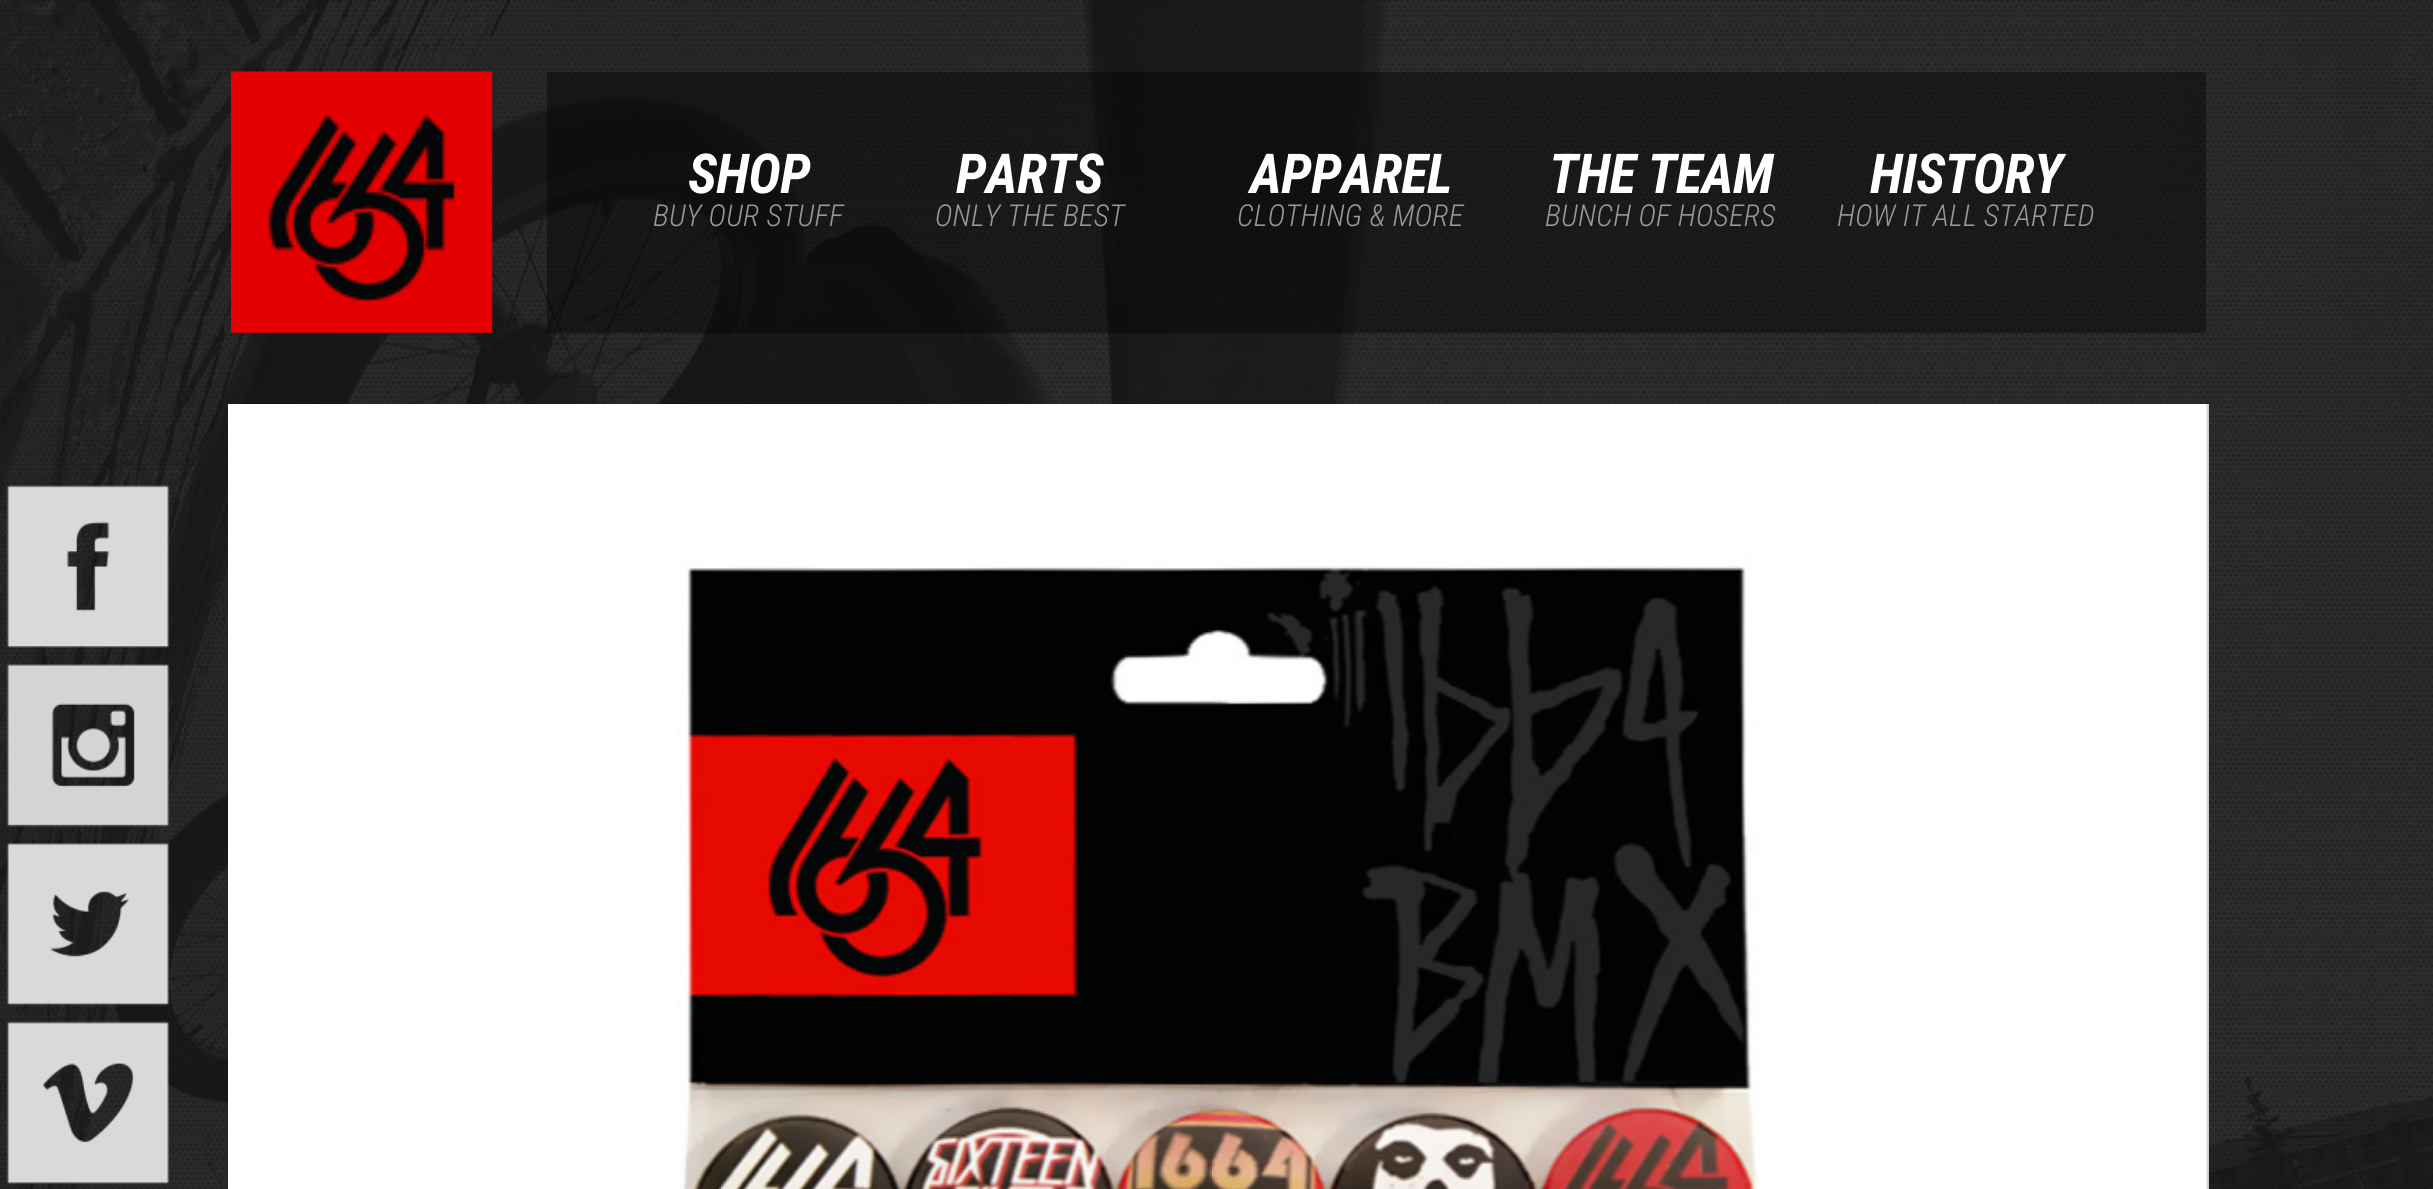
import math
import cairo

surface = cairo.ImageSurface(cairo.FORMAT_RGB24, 2433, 1189)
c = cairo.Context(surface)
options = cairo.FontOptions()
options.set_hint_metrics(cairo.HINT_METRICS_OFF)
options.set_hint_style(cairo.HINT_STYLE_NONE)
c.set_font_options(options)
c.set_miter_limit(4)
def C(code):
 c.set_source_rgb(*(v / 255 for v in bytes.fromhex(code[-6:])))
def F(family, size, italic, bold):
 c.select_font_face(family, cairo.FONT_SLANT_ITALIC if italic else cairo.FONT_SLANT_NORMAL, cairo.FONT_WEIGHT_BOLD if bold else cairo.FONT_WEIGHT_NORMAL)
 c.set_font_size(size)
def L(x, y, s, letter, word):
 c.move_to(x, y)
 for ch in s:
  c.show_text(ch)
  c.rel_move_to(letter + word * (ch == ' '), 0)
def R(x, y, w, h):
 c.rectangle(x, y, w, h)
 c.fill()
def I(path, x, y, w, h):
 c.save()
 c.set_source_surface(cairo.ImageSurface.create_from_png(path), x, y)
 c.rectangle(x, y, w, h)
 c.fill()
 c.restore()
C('ffffff')
c.paint()
I('1.png',0,0,2433,1189)
I('2.png',231,71,262,262)
c.set_source_rgba(0,0,0,0.4)
R(547,72,336,261)
F('Roboto Condensed',55,1,1)
C('ffffff')
L(688,193,'SHOP',-.5,0)
F('Roboto Condensed Light',30.25,1,0)
C('999999')
L(653,226,'BUY OUR STUFF',.25,0)
c.set_source_rgba(0,0,0,0.4)
R(883,72,294,261)
F('Roboto Condensed',55,1,1)
C('ffffff')
L(956,193,'PARTS',-.5,0)
F('Roboto Condensed Light',30.25,1,0)
C('999999')
L(935,226,'ONLY THE BEST',.25,0)
c.set_source_rgba(0,0,0,0.4)
R(1177,72,349,261)
F('Roboto Condensed',55,1,1)
C('ffffff')
L(1250,193,'APPAREL',-.5,0)
F('Roboto Condensed Light',30.25,1,0)
C('999999')
L(1237,226,'CLOTHING & MORE',.25,0)
c.set_source_rgba(0,0,0,0.4)
R(1526,72,270,261)
F('Roboto Condensed',55,1,1)
C('ffffff')
L(1549,193,'THE TEAM',-.5,0)
F('Roboto Condensed Light',30.25,1,0)
C('999999')
L(1545,226,'BUNCH OF HOSERS',.25,0)
c.set_source_rgba(0,0,0,0.4)
R(1796,72,410,261)
F('Roboto Condensed',55,1,1)
C('ffffff')
L(1870,193,'HISTORY',-.5,0)
F('Roboto Condensed Light',30.25,1,0)
C('999999')
L(1837,226,'HOW IT ALL STARTED',.25,0)
I('3.png',228,404,1981,785)
I('4.png',6,485,164,163)
I('5.png',6,664,164,163)
I('6.png',6,843,164,163)
I('7.png',6,1021,164,163)
surface.write_to_png('o.png')
